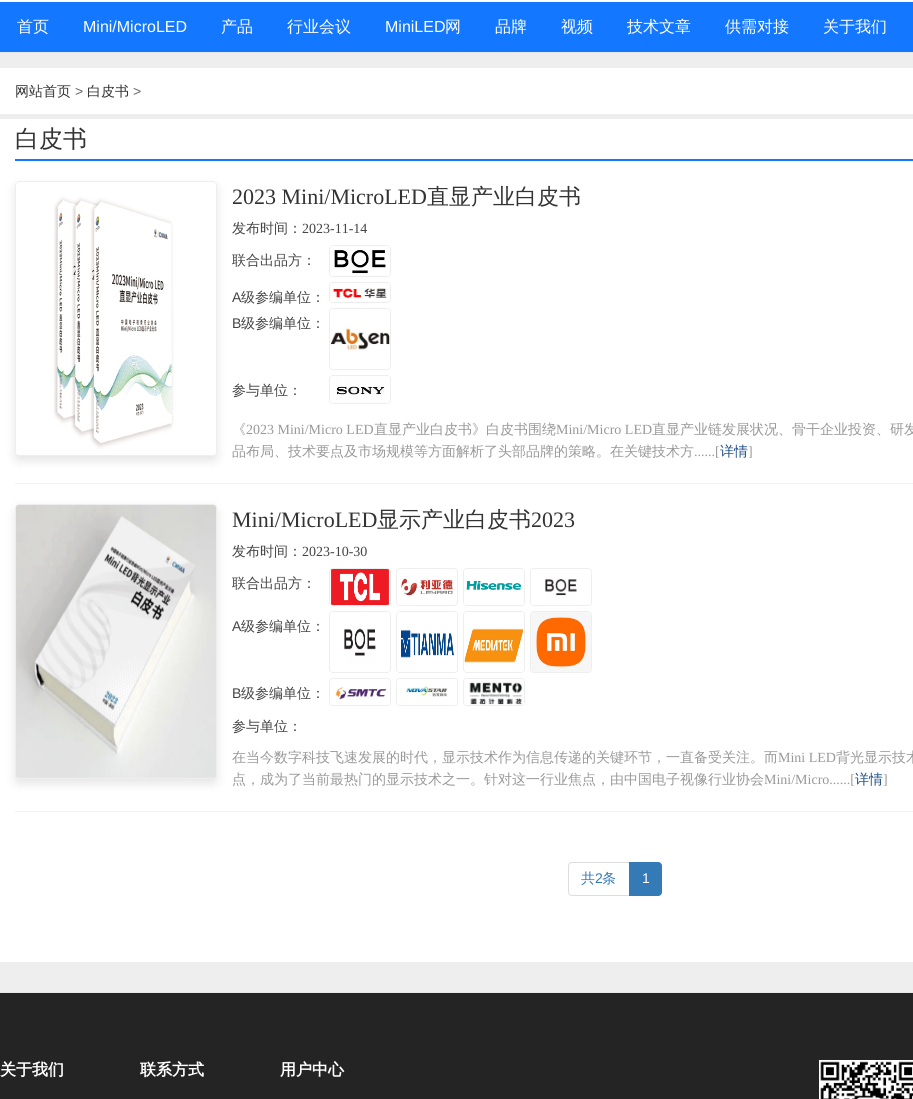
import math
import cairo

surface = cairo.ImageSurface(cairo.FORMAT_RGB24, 913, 1099)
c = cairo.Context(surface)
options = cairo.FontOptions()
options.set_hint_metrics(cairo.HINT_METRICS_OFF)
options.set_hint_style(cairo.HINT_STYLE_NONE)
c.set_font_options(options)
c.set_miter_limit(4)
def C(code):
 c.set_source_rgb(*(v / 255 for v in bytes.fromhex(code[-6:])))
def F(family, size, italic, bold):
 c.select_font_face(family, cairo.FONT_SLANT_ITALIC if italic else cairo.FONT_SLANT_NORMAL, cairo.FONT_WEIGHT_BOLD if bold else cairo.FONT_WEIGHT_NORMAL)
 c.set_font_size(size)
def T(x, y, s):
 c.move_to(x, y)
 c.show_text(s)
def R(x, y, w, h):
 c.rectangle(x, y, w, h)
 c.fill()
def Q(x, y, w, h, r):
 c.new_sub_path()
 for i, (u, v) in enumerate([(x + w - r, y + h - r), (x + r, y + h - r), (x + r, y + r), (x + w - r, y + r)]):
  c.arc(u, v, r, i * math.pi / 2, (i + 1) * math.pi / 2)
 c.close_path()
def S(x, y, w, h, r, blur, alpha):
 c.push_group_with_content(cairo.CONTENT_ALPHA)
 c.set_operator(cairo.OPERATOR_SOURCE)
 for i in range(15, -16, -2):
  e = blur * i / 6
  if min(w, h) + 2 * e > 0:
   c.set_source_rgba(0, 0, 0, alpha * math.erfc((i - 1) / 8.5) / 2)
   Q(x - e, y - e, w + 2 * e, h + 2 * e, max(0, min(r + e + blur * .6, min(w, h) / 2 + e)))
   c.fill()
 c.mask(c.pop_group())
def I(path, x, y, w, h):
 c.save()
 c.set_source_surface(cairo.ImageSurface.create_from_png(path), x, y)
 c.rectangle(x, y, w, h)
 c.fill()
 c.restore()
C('eeeeee')
c.paint()
C('ffffff')
R(0,0,913,2)
C('e6e6e6')
R(0,52,913,1)
C('1477ff')
R(0,2,913,50)
F('WenQuanYi Zen Hei Medium',16,0,0)
C('ffffff')
T(17,32,'首页')
F('Liberation Sans',16,0,0)
T(83,32,'Mini/MicroLED')
F('WenQuanYi Zen Hei Medium',16,0,0)
T(221,32,'产品')
T(287,32,'行业会议')
F('Liberation Sans',16,0,0)
T(385,32,'MiniLED')
F('WenQuanYi Zen Hei Medium',16,0,0)
T(445,32,'网')
T(495,32,'品牌')
T(561,32,'视频')
T(627,32,'技术文章')
T(725,32,'供需对接')
T(823,32,'关于我们')
R(0,68,913,46)
F('WenQuanYi Zen Hei Medium',14,0,0)
C('333333')
T(15,96,'网站首页')
F('Liberation Sans',14,0,0)
C('666666')
T(75,96,'>')
F('WenQuanYi Zen Hei Medium',14,0,0)
C('333333')
T(87,96,'白皮书')
F('Liberation Sans',14,0,0)
C('666666')
T(133,96,'>')
C('ffffff')
R(0,119,913,843)
C('1477ff')
R(15,159,898,2)
F('WenQuanYi Zen Hei Medium',24,0,0)
C('333333')
T(15,147,'白皮书')
C('f2f2f2')
R(15,483,898,1)
C('000000')
S(15,186,202,275,4,5,.1)
Q(15.5,181.5,201,274,3.5)
C('eeeeee')
c.set_line_width(1)
c.stroke()
I('1.png',16,182,200,273)
F('Liberation Serif',22,0,0)
C('333333')
T(232,204,'2023 Mini/MicroLED')
F('WenQuanYi Zen Hei Medium',22,0,0)
T(427,204,'直显产业白皮书')
F('WenQuanYi Zen Hei Medium',14,0,0)
C('444444')
T(232,233,'发布时间：')
F('Liberation Serif',14,0,0)
T(302,233,'2023-11-14')
F('WenQuanYi Zen Hei Medium',14,0,0)
T(232,265,'联合出品方：')
Q(329.5,245.5,61,31,3.5)
C('eeeeee')
c.stroke()
I('2.png',330,246,60,30)
F('Liberation Sans',14,0,0)
C('444444')
T(232,302,'A')
F('WenQuanYi Zen Hei Medium',14,0,0)
T(241,302,'级参编单位：')
Q(329.5,282.5,61,20,3.5)
C('eeeeee')
c.stroke()
I('3.png',330,283,60,19)
F('Liberation Sans',14,0,0)
C('444444')
T(232,328,'B')
F('WenQuanYi Zen Hei Medium',14,0,0)
T(241,328,'级参编单位：')
Q(329.5,308.5,61,61,3.5)
C('eeeeee')
c.stroke()
I('4.png',330,309,60,60)
C('444444')
T(232,395,'参与单位：')
Q(329.5,375.5,61,28,3.5)
C('eeeeee')
c.stroke()
I('5.png',330,376,60,27)
C('999999')
T(232,434,'《')
F('Liberation Serif',14,0,0)
T(246,434,'2023 Mini/Micro LED')
F('WenQuanYi Zen Hei Medium',14,0,0)
T(374,434,'直显产业白皮书》白皮书围绕')
F('Liberation Serif',14,0,0)
T(556,434,'Mini/Micro LED')
F('WenQuanYi Zen Hei Medium',14,0,0)
T(652,434,'直显产业链发展状况、骨干企业投资、研发')
T(232,456,'品布局、技术要点及市场规模等方面解析了头部品牌的策略。在关键技术方')
F('Liberation Serif',14,0,0)
T(694,456,'......[')
F('WenQuanYi Zen Hei Medium',14,0,0)
C('1f4f88')
T(720,456,'详情')
F('Liberation Serif',14,0,0)
C('999999')
T(748,456,']')
C('f2f2f2')
R(15,811,898,1)
C('000000')
S(15,509,202,275,4,5,.1)
Q(15.5,504.5,201,274,3.5)
C('eeeeee')
c.stroke()
I('6.png',16,505,200,273)
F('Liberation Serif',22,0,0)
C('333333')
T(232,527,'Mini/MicroLED')
F('WenQuanYi Zen Hei Medium',22,0,0)
T(377,527,'显示产业白皮书')
F('Liberation Serif',22,0,0)
T(531,527,'2023')
F('WenQuanYi Zen Hei Medium',14,0,0)
C('444444')
T(232,556,'发布时间：')
F('Liberation Serif',14,0,0)
T(302,556,'2023-10-30')
F('WenQuanYi Zen Hei Medium',14,0,0)
T(232,588,'联合出品方：')
Q(329.5,568.5,61,37,3.5)
C('eeeeee')
c.stroke()
I('7.png',331,569,58,36)
Q(396.5,568.5,61,37,3.5)
c.stroke()
I('8.png',401,578,53,18)
Q(463.5,568.5,61,37,3.5)
c.stroke()
I('9.png',464,569,60,36)
Q(530.5,568.5,61,37,3.5)
c.stroke()
I('10.png',531,569,60,36)
F('Liberation Sans',14,0,0)
C('444444')
T(232,631,'A')
F('WenQuanYi Zen Hei Medium',14,0,0)
T(241,631,'级参编单位：')
Q(329.5,611.5,61,61,3.5)
C('eeeeee')
c.stroke()
I('11.png',330,612,60,60)
Q(396.5,611.5,61,61,3.5)
c.stroke()
I('12.png',397,612,60,60)
Q(463.5,611.5,61,61,3.5)
c.stroke()
I('13.png',464,612,60,60)
Q(530.5,611.5,61,61,3.5)
c.stroke()
I('14.png',531,612,60,60)
F('Liberation Sans',14,0,0)
C('444444')
T(232,698,'B')
F('WenQuanYi Zen Hei Medium',14,0,0)
T(241,698,'级参编单位：')
Q(329.5,678.5,61,27,3.5)
C('eeeeee')
c.stroke()
I('15.png',330,679,60,26)
Q(396.5,678.5,61,27,3.5)
c.stroke()
I('16.png',397,679,60,26)
Q(463.5,678.5,61,27,3.5)
c.stroke()
I('17.png',464,679,60,26)
C('444444')
T(232,731,'参与单位：')
C('999999')
T(232,762,'在当今数字科技飞速发展的时代，显示技术作为信息传递的关键环节，一直备受关注。而')
F('Liberation Serif',14,0,0)
T(778,762,'Mini LED')
F('WenQuanYi Zen Hei Medium',14,0,0)
T(836,762,'背光显示技术')
T(232,784,'点，成为了当前最热门的显示技术之一。针对这一行业焦点，由中国电子视像行业协会')
F('Liberation Serif',14,0,0)
T(764,784,'Mini/Micro......[')
F('WenQuanYi Zen Hei Medium',14,0,0)
C('1f4f88')
T(855,784,'详情')
F('Liberation Serif',14,0,0)
C('999999')
T(883,784,']')
c.new_path()
c.move_to(572,862.5)
c.line_to(629.5,862.5)
c.line_to(629.5,895.5)
c.line_to(572,895.5)
c.curve_to(570,895.5,568.5,894,568.5,892)
c.line_to(568.5,866)
c.curve_to(568.5,864,570,862.5,572,862.5)
c.close_path()
C('dddddd')
c.stroke()
F('WenQuanYi Zen Hei Medium',14,0,0)
C('337ab7')
T(581,883,'共')
F('Liberation Sans',14,0,0)
T(595,883,'2')
F('WenQuanYi Zen Hei Medium',14,0,0)
T(602,883,'条')
c.new_path()
c.move_to(629.5,862.5)
c.line_to(658,862.5)
c.curve_to(660,862.5,661.5,864,661.5,866)
c.line_to(661.5,892)
c.curve_to(661.5,894,660,895.5,658,895.5)
c.line_to(629.5,895.5)
c.close_path()
c.fill_preserve()
c.stroke()
F('Liberation Sans',14,0,0)
C('ffffff')
T(642,883,'1')
C('242424')
R(0,993,913,106)
C('e7e7e7')
R(0,992,913,1)
F('WenQuanYi Zen Hei',16,0,1)
C('ffffff')
T(0,1075,'关于我们')
T(140,1075,'联系方式')
T(280,1075,'用户中心')
I('18.png',819,1060,94,39)
surface.write_to_png('o.png')
